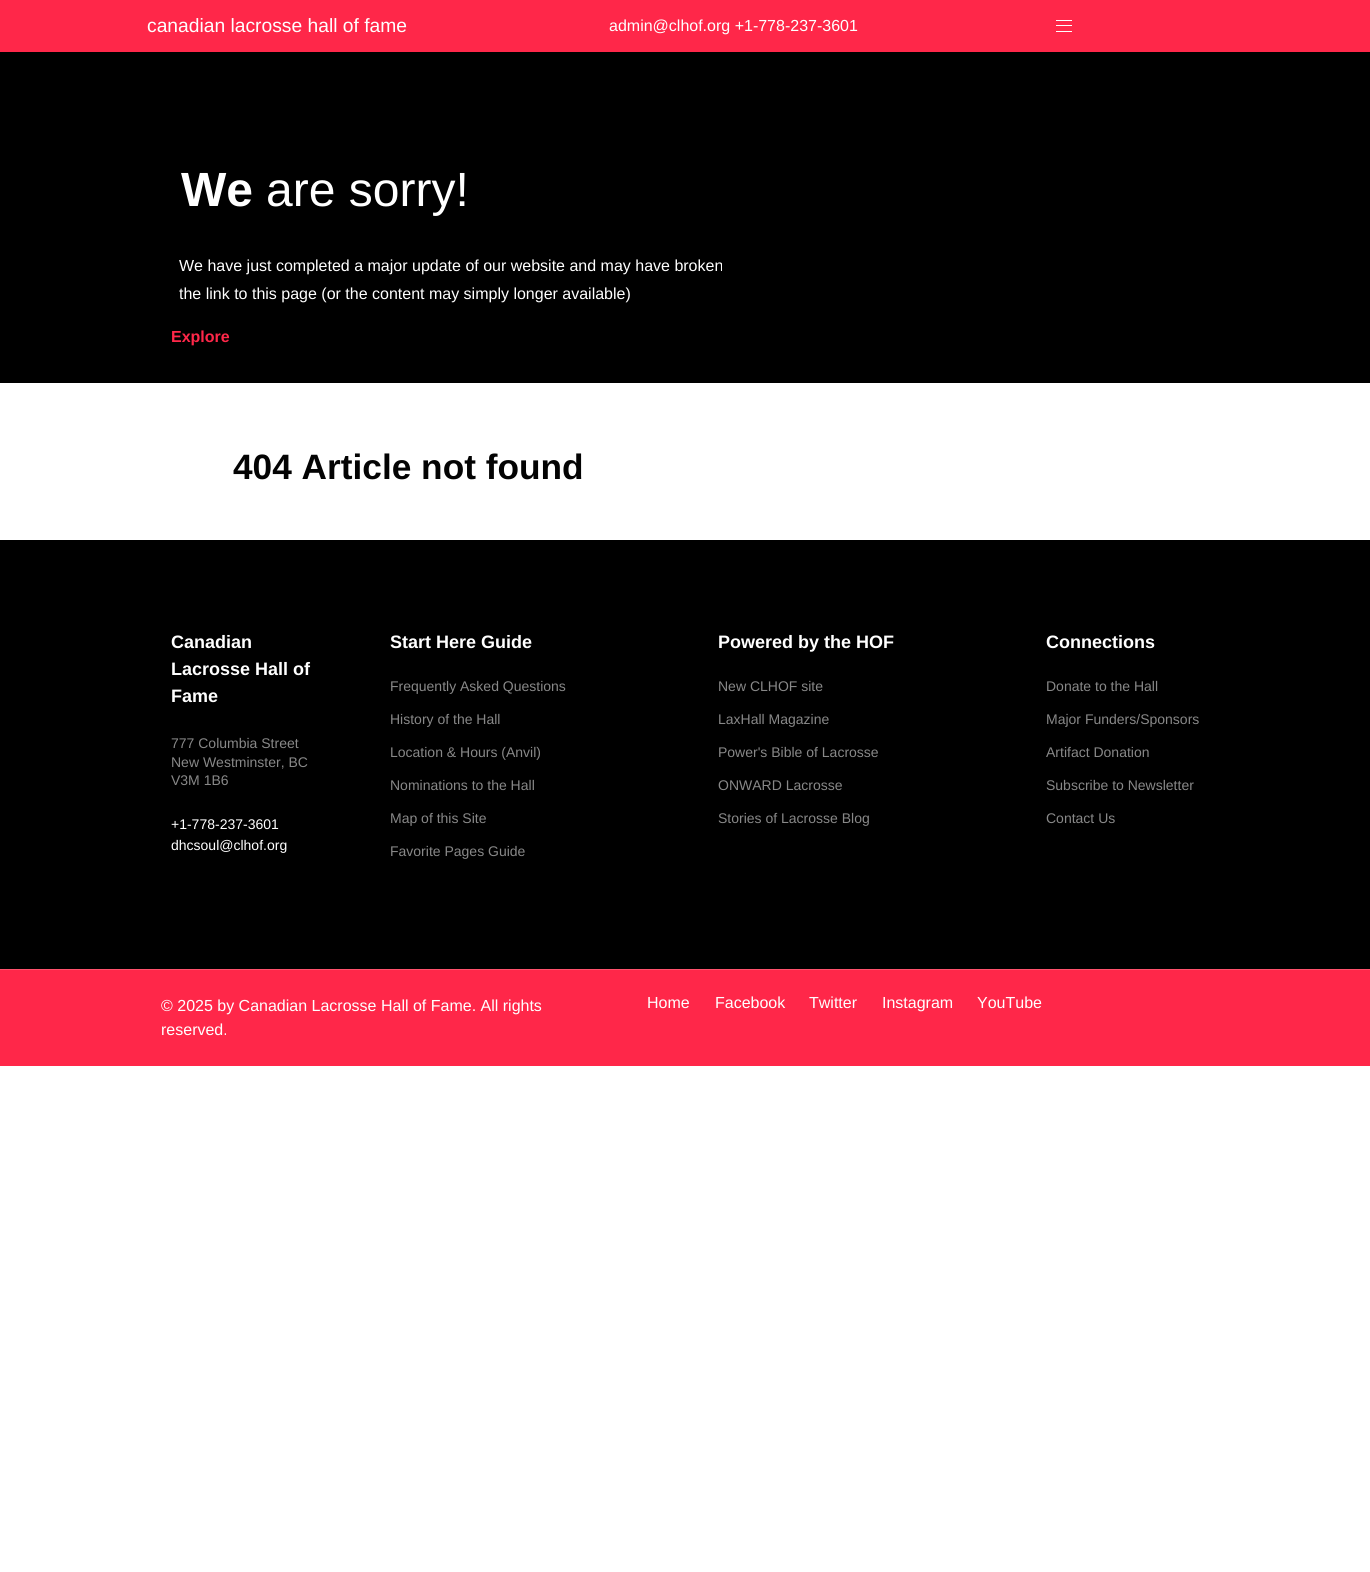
import math
import cairo

surface = cairo.ImageSurface(cairo.FORMAT_RGB24, 1370, 1572)
c = cairo.Context(surface)
options = cairo.FontOptions()
options.set_hint_metrics(cairo.HINT_METRICS_OFF)
options.set_hint_style(cairo.HINT_STYLE_NONE)
c.set_font_options(options)
c.set_miter_limit(4)
def C(code):
 c.set_source_rgb(*(v / 255 for v in bytes.fromhex(code[-6:])))
def F(family, size, italic, bold):
 c.select_font_face(family, cairo.FONT_SLANT_ITALIC if italic else cairo.FONT_SLANT_NORMAL, cairo.FONT_WEIGHT_BOLD if bold else cairo.FONT_WEIGHT_NORMAL)
 c.set_font_size(size)
def T(x, y, s):
 c.move_to(x, y)
 c.show_text(s)
def R(x, y, w, h):
 c.rectangle(x, y, w, h)
 c.fill()
C('ffffff')
c.paint()
C('ff2749')
R(0,0,1370,52)
F('Liberation Sans',19.25,0,0)
C('ffffff')
T(147,32,'canadian lacrosse hall of fame')
F('Liberation Sans',16,0,0)
T(609,31,'admin@clhof.org +1-778-237-3601')
R(1056,20,16,1)
R(1056,25,16,1)
R(1056,31,16,1)
C('000000')
R(0,52,1370,331)
F('Liberation Sans',48,0,1)
C('ffffff')
T(181,206,'We')
F('Liberation Sans',48,0,0)
T(266,206,'are sorry!')
F('Liberation Sans',16,0,0)
T(179,271,'We have just completed a major update of our website and may have broken')
T(179,299,'the link to this page (or the content may simply longer available)')
F('Liberation Sans',16,0,1)
C('ff2749')
T(171,342,'Explore')
F('Liberation Sans',35.25,0,1)
C('030303')
T(233,479,'404 Article not found')
C('000000')
R(0,540,1370,429)
F('Liberation Sans',18,0,1)
C('ffffff')
T(171,648,'Canadian')
T(171,675,'Lacrosse Hall of')
T(171,702,'Fame')
F('Liberation Sans',14,0,0)
C('888888')
T(171,748,'777 Columbia Street')
T(171,767,'New Westminster, BC')
T(171,785,'V3M 1B6')
C('ffffff')
T(171,829,'+1-778-237-3601')
T(171,850,'dhcsoul@clhof.org')
F('Liberation Sans',18,0,1)
T(390,648,'Start Here Guide')
F('Liberation Sans',14,0,0)
C('888888')
T(390,691,'Frequently Asked Questions')
T(390,724,'History of the Hall')
T(390,757,'Location & Hours (Anvil)')
T(390,790,'Nominations to the Hall')
T(390,823,'Map of this Site')
T(390,856,'Favorite Pages Guide')
F('Liberation Sans',18,0,1)
C('ffffff')
T(718,648,'Powered by the HOF')
F('Liberation Sans',14,0,0)
C('888888')
T(718,691,'New CLHOF site')
T(718,724,'LaxHall Magazine')
T(718,757,'Power\'s Bible of Lacrosse')
T(718,790,'ONWARD Lacrosse')
T(718,823,'Stories of Lacrosse Blog')
F('Liberation Sans',18,0,1)
C('ffffff')
T(1046,648,'Connections')
F('Liberation Sans',14,0,0)
C('888888')
T(1046,691,'Donate to the Hall')
T(1046,724,'Major Funders/Sponsors')
T(1046,757,'Artifact Donation')
T(1046,790,'Subscribe to Newsletter')
T(1046,823,'Contact Us')
C('ff2749')
R(0,970,1370,96)
C('ff526d')
R(0,969,1370,1)
F('Liberation Sans',16,0,0)
C('ffffff')
T(161,1011,'© 2025 by Canadian Lacrosse Hall of Fame. All rights')
T(161,1035,'reserved.')
T(647,1008,'Home')
T(715,1008,'Facebook')
T(809,1008,'Twitter')
T(882,1008,'Instagram')
T(977,1008,'YouTube')
surface.write_to_png('o.png')
